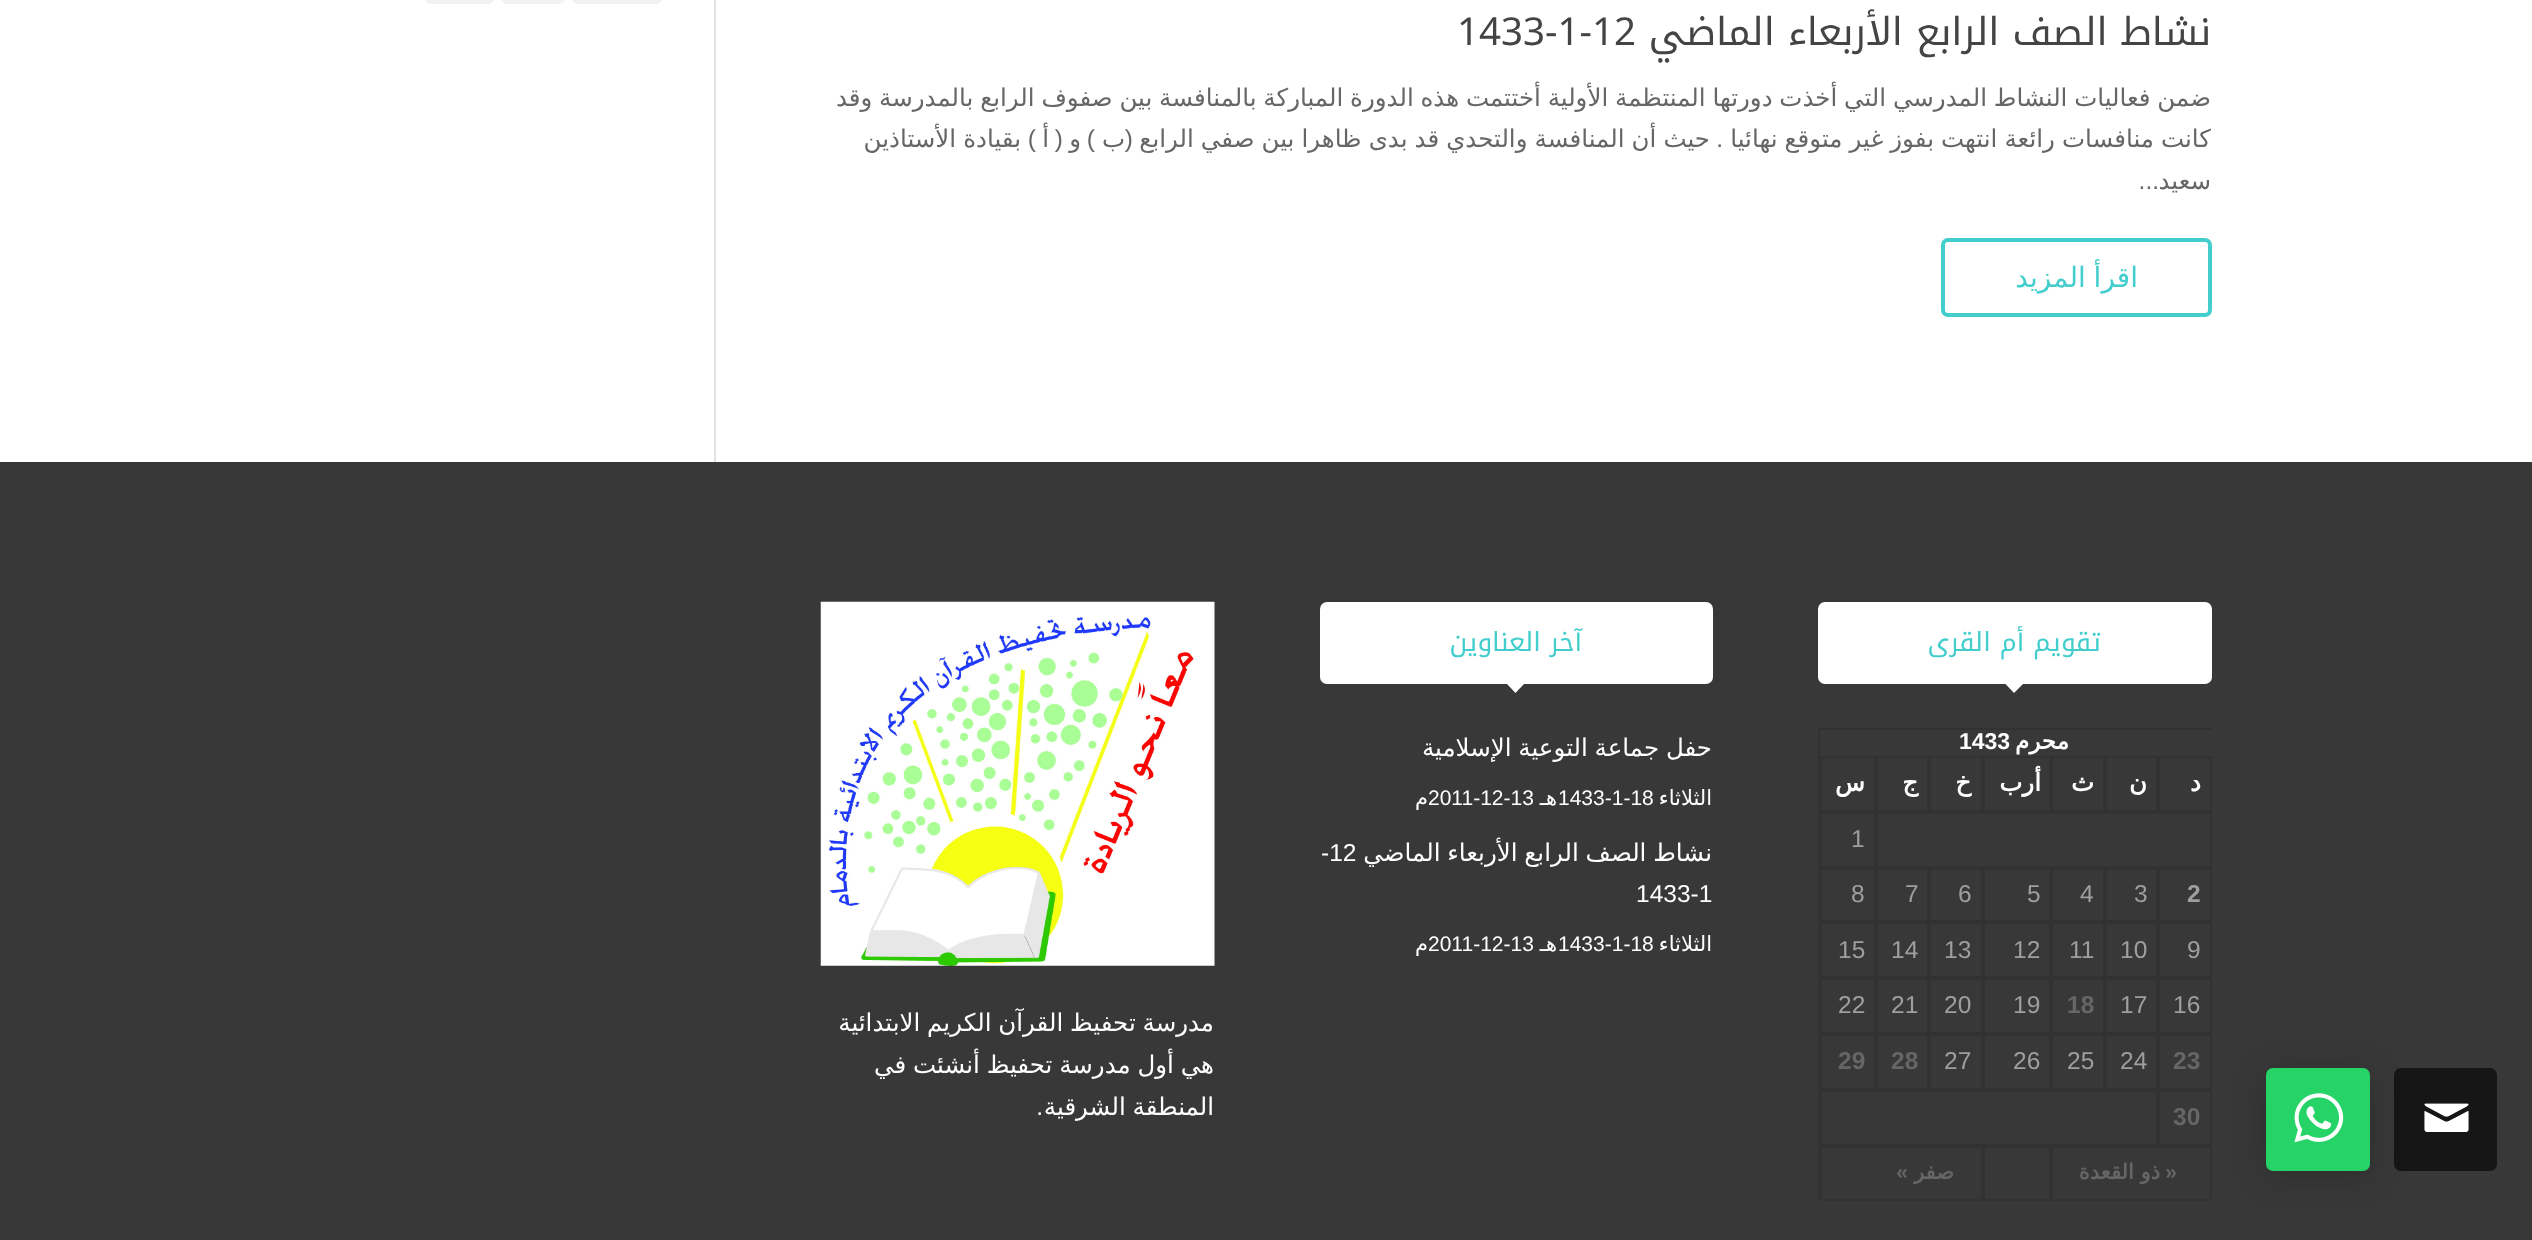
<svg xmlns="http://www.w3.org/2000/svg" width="2532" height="1240">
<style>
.a{font:38.5px Noto Kufi Arabic;direction:rtl;fill:#444}
.b{font:38.5px Noto Kufi Arabic;fill:#444}
.c{font:24.5px DejaVu Sans;direction:rtl;fill:#666}
.d{font:24.5px Liberation Sans;direction:rtl;fill:#666}
.e{font:28px DejaVu Sans;direction:rtl;fill:#44cdcd}
.f{font:26.25px Noto Kufi Arabic;direction:rtl;fill:#44cdcd}
.g{font:bold 23px DejaVu Sans;direction:rtl;fill:#fff}
.h{font:bold 23px Liberation Sans;fill:#fff}
.i{font:bold 24.5px DejaVu Sans;direction:rtl;fill:#fff}
.j{font:24.5px Liberation Sans;fill:#9f9f9f}
.k{font:bold 24.5px Liberation Sans;fill:#9f9f9f}
.l{font:bold 24.5px Liberation Sans;fill:#666}
.m{font:bold 21px Liberation Sans;direction:rtl;fill:#666}
.n{font:bold 21px DejaVu Sans;direction:rtl;fill:#666}
.o{font:24.5px DejaVu Sans;direction:rtl;fill:#fff}
.p{font:21px DejaVu Sans;direction:rtl;fill:#fff}
.q{font:21px Liberation Sans;fill:#fff}
.r{font:24.5px Liberation Sans;fill:#fff}
.s{font:24.5px Liberation Sans;direction:rtl;fill:#fff}
</style>
<defs>
<clipPath id="clip1"><path d="M821 7h1391v310H821z"/></clipPath>
<clipPath id="clip2"><path d="M1320 728h393v84H1320z"/></clipPath>
<clipPath id="clip3"><path d="M1320 833h393v124H1320z"/></clipPath>
</defs>
<rect width="100%" height="100%" fill="#fff"/>
<path fill="#383838" d="M0 462h2532v778H0z"/>
<rect fill="#00000099" x="2394" y="1068" width="103" height="103" rx="7"/>
<image href="1.png" x="2424" y="1103" width="45" height="29"/>
<rect fill="#00000033" filter="blur(17.5px)" x="2266" y="1073" width="104" height="103" rx="7"/>
<rect fill="#25d366" x="2266" y="1068" width="104" height="103" rx="7"/>
<image href="2.png" x="2294" y="1093" width="50" height="50"/>
<rect fill="#f2f2f2" x="572" y="-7" width="90" height="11" rx="7"/>
<rect fill="#f2f2f2" x="501" y="-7" width="64" height="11" rx="7"/>
<rect fill="#f2f2f2" x="425" y="-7" width="69" height="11" rx="7"/>
<rect fill="none" stroke="#44cdcd" stroke-width="4" x="1943" y="240" width="267" height="75" rx="5"/>
<path fill="#e2e2e2" d="M714 0h2v462H714z"/>
<rect fill="#fff" x="1818" y="602" width="394" height="82" rx="7"/>
<path fill="#fff" d="M2005.5 684h17.5l-9 9z"/>
<path fill="#323232" d="M1818 728h394v2h-392z"/>
<path fill="#0000001a" d="M1818 1200v-472l2 2v470z"/>
<path fill="none" stroke="#323232" stroke-width="2" d="M2159 757h52v54H2159z"/>
<path fill="none" stroke="#323232" stroke-width="2" d="M2106 757h51v54H2106z"/>
<path fill="none" stroke="#323232" stroke-width="2" d="M2052 757h52v54H2052z"/>
<path fill="none" stroke="#323232" stroke-width="2" d="M1984 757h66v54H1984z"/>
<path fill="none" stroke="#323232" stroke-width="2" d="M1930 757h52v54H1930z"/>
<path fill="none" stroke="#323232" stroke-width="2" d="M1877 757h51v54H1877z"/>
<path fill="none" stroke="#323232" stroke-width="2" d="M1821 757h54v54H1821z"/>
<path fill="none" stroke="#323232" stroke-width="2" d="M1877 813h334v54H1877z"/>
<path fill="none" stroke="#323232" stroke-width="2" d="M1821 813h54v54H1821z"/>
<path fill="none" stroke="#323232" stroke-width="2" d="M2159 869h52v52H2159z"/>
<path fill="none" stroke="#323232" stroke-width="2" d="M2106 869h51v52H2106z"/>
<path fill="none" stroke="#323232" stroke-width="2" d="M2052 869h52v52H2052z"/>
<path fill="none" stroke="#323232" stroke-width="2" d="M1984 869h66v52H1984z"/>
<path fill="none" stroke="#323232" stroke-width="2" d="M1930 869h52v52H1930z"/>
<path fill="none" stroke="#323232" stroke-width="2" d="M1877 869h51v52H1877z"/>
<path fill="none" stroke="#323232" stroke-width="2" d="M1821 869h54v52H1821z"/>
<path fill="none" stroke="#323232" stroke-width="2" d="M2159 923h52v54H2159z"/>
<path fill="none" stroke="#323232" stroke-width="2" d="M2106 923h51v54H2106z"/>
<path fill="none" stroke="#323232" stroke-width="2" d="M2052 923h52v54H2052z"/>
<path fill="none" stroke="#323232" stroke-width="2" d="M1984 923h66v54H1984z"/>
<path fill="none" stroke="#323232" stroke-width="2" d="M1930 923h52v54H1930z"/>
<path fill="none" stroke="#323232" stroke-width="2" d="M1877 923h51v54H1877z"/>
<path fill="none" stroke="#323232" stroke-width="2" d="M1821 923h54v54H1821z"/>
<path fill="none" stroke="#323232" stroke-width="2" d="M2159 979h52v54H2159z"/>
<path fill="none" stroke="#323232" stroke-width="2" d="M2106 979h51v54H2106z"/>
<path fill="none" stroke="#323232" stroke-width="2" d="M2052 979h52v54H2052z"/>
<path fill="none" stroke="#323232" stroke-width="2" d="M1984 979h66v54H1984z"/>
<path fill="none" stroke="#323232" stroke-width="2" d="M1930 979h52v54H1930z"/>
<path fill="none" stroke="#323232" stroke-width="2" d="M1877 979h51v54H1877z"/>
<path fill="none" stroke="#323232" stroke-width="2" d="M1821 979h54v54H1821z"/>
<path fill="none" stroke="#323232" stroke-width="2" d="M2159 1035h52v54H2159z"/>
<path fill="none" stroke="#323232" stroke-width="2" d="M2106 1035h51v54H2106z"/>
<path fill="none" stroke="#323232" stroke-width="2" d="M2052 1035h52v54H2052z"/>
<path fill="none" stroke="#323232" stroke-width="2" d="M1984 1035h66v54H1984z"/>
<path fill="none" stroke="#323232" stroke-width="2" d="M1930 1035h52v54H1930z"/>
<path fill="none" stroke="#323232" stroke-width="2" d="M1877 1035h51v54H1877z"/>
<path fill="none" stroke="#323232" stroke-width="2" d="M1821 1035h54v54H1821z"/>
<path fill="none" stroke="#323232" stroke-width="2" d="M2159 1091h52v54H2159z"/>
<path fill="none" stroke="#323232" stroke-width="2" d="M1821 1091h336v54H1821z"/>
<path fill="none" stroke="#323232" stroke-width="2" d="M2052 1147h159v53H2052z"/>
<path fill="none" stroke="#323232" stroke-width="2" d="M1984 1147h66v53H1984z"/>
<path fill="none" stroke="#323232" stroke-width="2" d="M1821 1147h161v53H1821z"/>
<rect fill="#fff" x="1320" y="602" width="393" height="82" rx="7"/>
<path fill="#fff" d="M1507 684h17l-8.5 9z"/>
<image href="3.png" x="820" y="601" width="395" height="365"/>
<text class="a" x="2211" y="45">نشاط الصف الرابع الأربعاء الماضي</text>
<text class="b" x="1457" y="45">1433-1-12</text>
<g clip-path="url(#clip1)">
<text class="c" x="2211" y="106" word-spacing="-1">ضمن فعاليات النشاط المدرسي التي أخذت دورتها المنتظمة الأولية أختتمت هذه الدورة المباركة بالمنافسة بين صفوف الرابع بالمدرسة وقد</text>
<text class="c" x="2211" y="147" word-spacing="-0.75">كانت منافسات رائعة انتهت بفوز غير متوقع نهائيا</text>
</g>
<text class="d" x="1723" y="147">.</text>
<text class="c" x="1710" y="147" word-spacing="-0.75">حيث أن المنافسة والتحدي قد بدى ظاهرا بين صفي الرابع</text>
<text class="d" x="1133" y="147">(</text>
<text class="c" x="1125" y="147">ب</text>
<text class="d" x="1095" y="147">)</text>
<text class="c" x="1081" y="147">و</text>
<text class="d" x="1063" y="147">(</text>
<text class="c" x="1049" y="147">أ</text>
<text class="d" x="1036" y="147">)</text>
<text class="c" x="1021" y="147" word-spacing="-0.75">بقيادة الأستاذين</text>
<text class="c" x="2211" y="189">سعيد</text>
<text class="d" x="2159" y="189">...</text>
<text class="e" x="2138" y="287" word-spacing="-1">اقرأ المزيد</text>
<text class="f" x="2101" y="651">تقويم أم القرى</text>
<text class="g" x="2069" y="749">محرم</text>
<text class="h" x="1959" y="749">1433</text>
<text class="i" x="2201" y="791">د</text>
<text class="i" x="2147" y="791">ن</text>
<text class="i" x="2094" y="791">ث</text>
<text class="i" x="2041" y="791">أرب</text>
<text class="i" x="1971" y="791">خ</text>
<text class="i" x="1918" y="791">ج</text>
<text class="i" x="1865" y="791">س</text>
<text class="j" x="1851" y="847">1</text>
<text class="k" x="2187" y="902">2</text>
<text class="j" x="2134" y="902">3</text>
<text class="j" x="2080" y="902">4</text>
<text class="j" x="2027" y="902">5</text>
<text class="j" x="1958" y="902">6</text>
<text class="j" x="1905" y="902">7</text>
<text class="j" x="1851" y="902">8</text>
<text class="j" x="2187" y="958">9</text>
<text class="j" x="2120" y="958">10</text>
<text class="j" x="2069" y="958">11</text>
<text class="j" x="2013" y="958">12</text>
<text class="j" x="1944" y="958">13</text>
<text class="j" x="1891" y="958">14</text>
<text class="j" x="1838" y="958">15</text>
<text class="j" x="2173" y="1013">16</text>
<text class="j" x="2120" y="1013">17</text>
<text class="l" x="2067" y="1013">18</text>
<text class="j" x="2013" y="1013">19</text>
<text class="j" x="1944" y="1013">20</text>
<text class="j" x="1891" y="1013">21</text>
<text class="j" x="1838" y="1013">22</text>
<text class="l" x="2173" y="1069">23</text>
<text class="j" x="2120" y="1069">24</text>
<text class="j" x="2067" y="1069">25</text>
<text class="j" x="2013" y="1069">26</text>
<text class="j" x="1944" y="1069">27</text>
<text class="l" x="1891" y="1069">28</text>
<text class="l" x="1838" y="1069">29</text>
<text class="l" x="2173" y="1125">30</text>
<text class="m" x="2177" y="1179">«</text>
<text class="n" x="2160" y="1179">ذو القعدة</text>
<text class="n" x="1954" y="1179">صفر</text>
<text class="m" x="1908" y="1179">»</text>
<text class="f" x="1582" y="651">آخر العناوين</text>
<g clip-path="url(#clip2)">
<text class="o" x="1712" y="756" word-spacing="-1">حفل جماعة التوعية الإسلامية</text>
</g>
<text class="p" x="1712" y="805">الثلاثاء</text>
<text class="q" x="1558" y="805">1433-1-18</text>
<text class="p" x="1557" y="805">هـ</text>
<text class="q" x="1428" y="805">2011-12-13</text>
<text class="p" x="1428" y="805">م</text>
<g clip-path="url(#clip3)">
<text class="o" x="1712" y="861" word-spacing="-1">نشاط الصف الرابع الأربعاء الماضي</text>
</g>
<text class="r" x="1321" y="861">-12</text>
<text class="r" x="1636" y="902">1433-1</text>
<text class="p" x="1712" y="951">الثلاثاء</text>
<text class="q" x="1558" y="951">1433-1-18</text>
<text class="p" x="1557" y="951">هـ</text>
<text class="q" x="1428" y="951">2011-12-13</text>
<text class="p" x="1428" y="951">م</text>
<text class="o" x="1214" y="1031" word-spacing="-1">مدرسة تحفيظ القرآن الكريم الابتدائية</text>
<text class="o" x="1214" y="1073" word-spacing="-1">هي أول مدرسة تحفيظ أنشئت في</text>
<text class="o" x="1214" y="1115" word-spacing="-1">المنطقة الشرقية</text>
<text class="s" x="1043" y="1115">.</text>
</svg>
